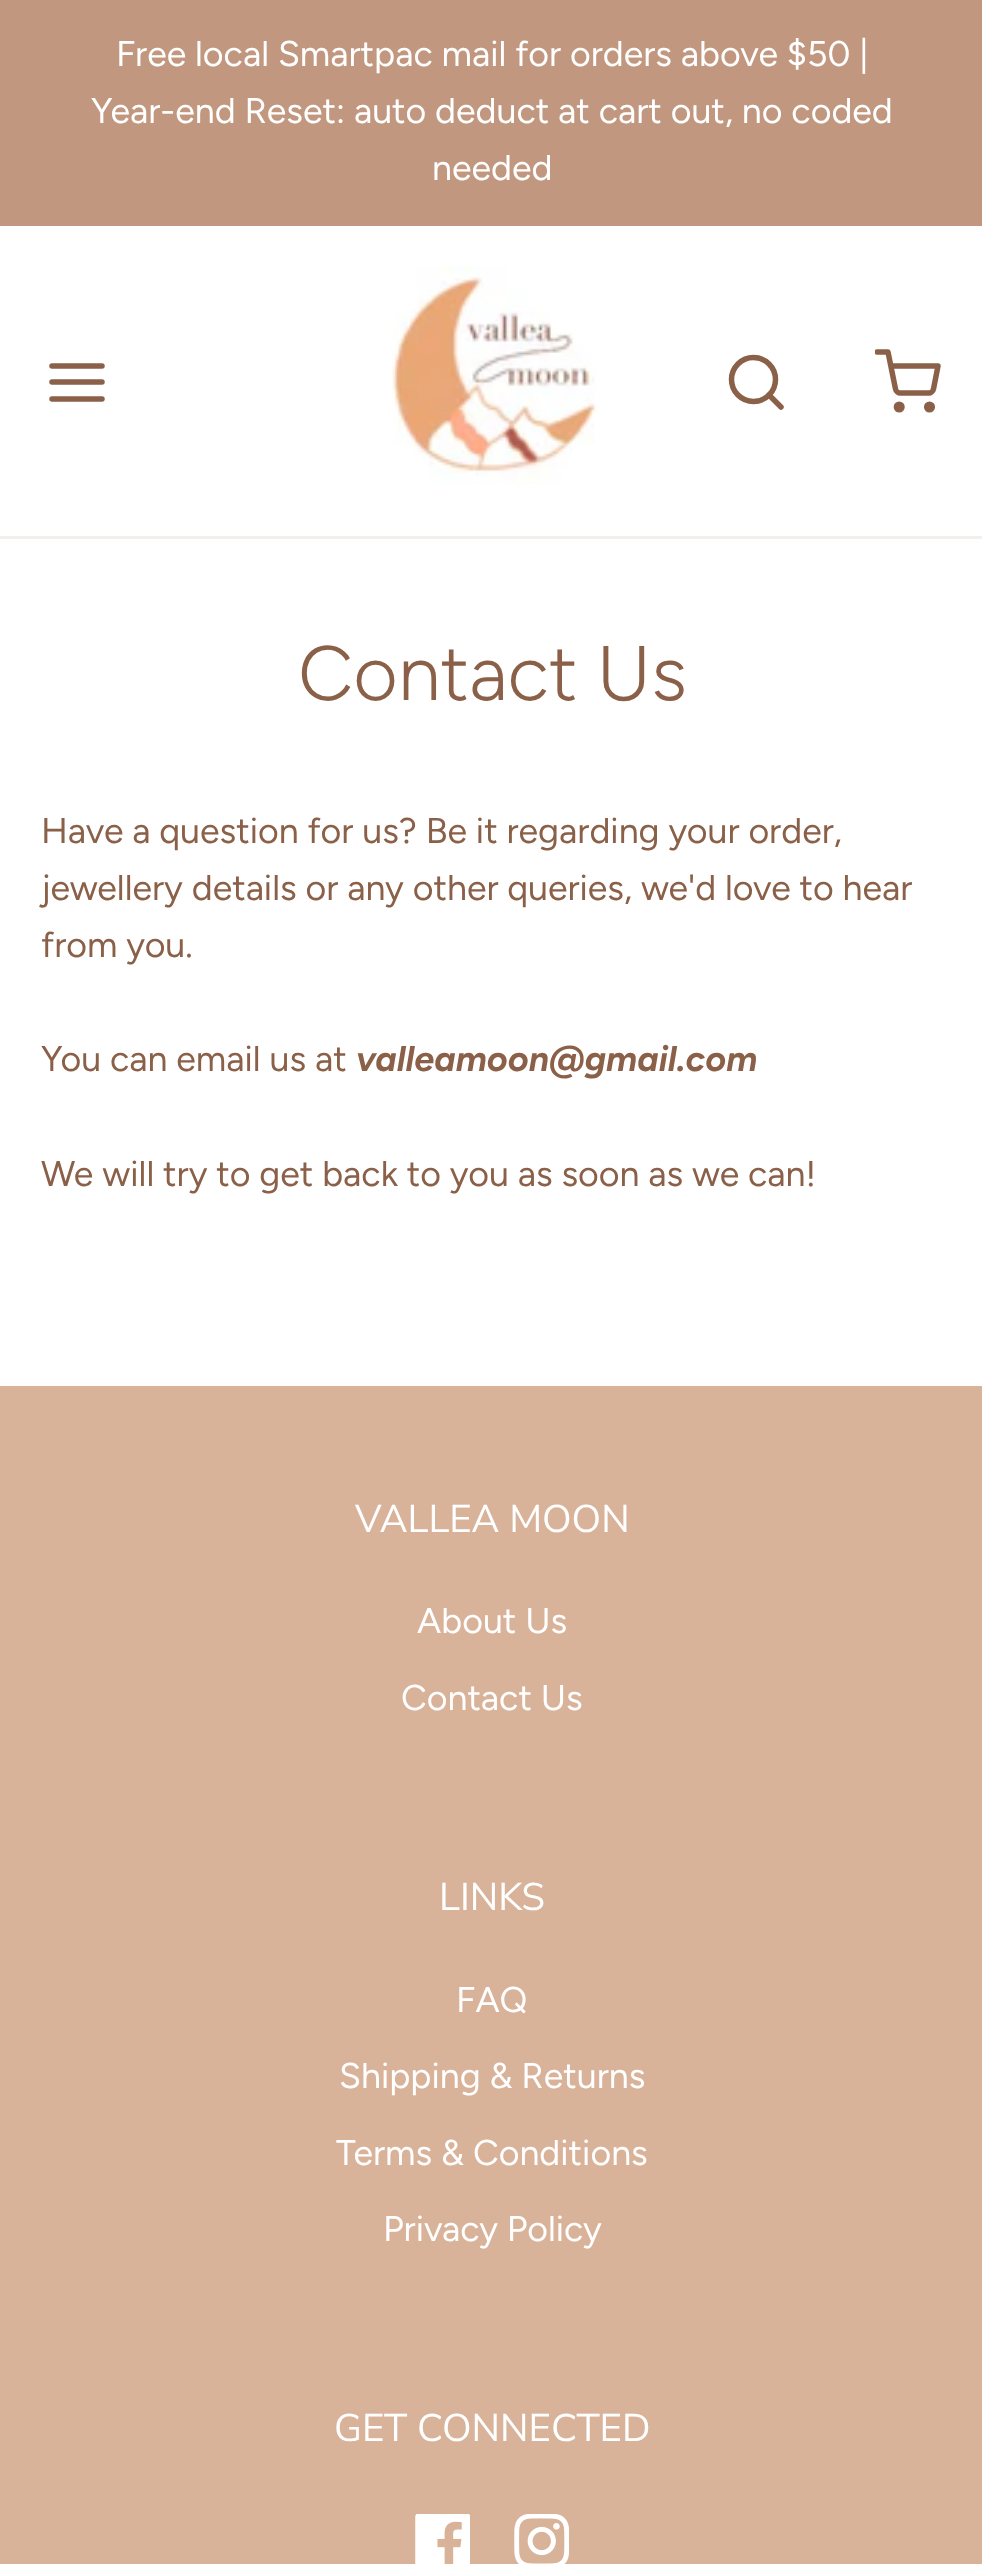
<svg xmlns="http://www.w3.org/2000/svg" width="982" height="2564">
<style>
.a{font:35.75px Figtree;fill:#fff}
.b{font:300 77px Figtree;fill:#8b6048}
.c{font:35.75px Figtree;fill:#8b6048}
.d{font:italic bold 35.75px Figtree;fill:#8b6048}
.e{font:38.5px Nunito Sans;fill:#fff}
</style>
<defs>
<clipPath id="clip1"><path d="M875 349h66v66H875z"/></clipPath>
</defs>
<rect width="100%" height="100%" fill="#fff"/>
<path fill="#c1987f" d="M0 0h982v226H0z"/>
<path fill="#f3efed" d="M0 536h982v3H0z"/>
<path fill="none" stroke="#8b6048" stroke-width="5.5" stroke-linecap="round" stroke-linejoin="round" d="M52 382h50m-50-16h50m-50 33h50"/>
<image href="1.png" x="392" y="267" width="205" height="217"/>
<circle fill="none" stroke="#8b6048" stroke-width="5.5" cx="753.5" cy="379.5" r="22"/>
<path fill="none" stroke="#8b6048" stroke-width="5.5" stroke-linecap="round" stroke-linejoin="round" d="M781 407l-12-12"/>
<circle fill="none" stroke="#8b6048" stroke-width="5.5" cx="899.2" cy="407" r="2.8"/>
<circle fill="none" stroke="#8b6048" stroke-width="5.5" cx="929.5" cy="407" r="2.8"/>
<g clip-path="url(#clip1)">
<path fill="none" stroke="#8b6048" stroke-width="5.5" stroke-linecap="round" stroke-linejoin="round" d="M877 352h11l7.5 37c.5 2.5 3 4.5 5.5 4h27c2.5 .5 5-1.5 5.5-4l4.5-23h-47"/>
</g>
<path fill="#d9b29a" d="M0 1386h982v1178H0z"/>
<image href="2.png" x="415" y="2514" width="55" height="50"/>
<image href="3.png" x="514" y="2514" width="55" height="50"/>
<text class="a" x="116" y="66">Free local Smartpac mail for orders above $50 |</text>
<text class="a" x="91" y="123">Year-end Reset: auto deduct at cart out, no coded</text>
<text class="a" x="432" y="180">needed</text>
<text class="b" x="298" y="700">Contact Us</text>
<text class="c" x="41" y="843">Have a question for us? Be it regarding your order,</text>
<text class="c" x="41" y="900">jewellery details or any other queries, we'd love to hear</text>
<text class="c" x="41" y="957">from you.</text>
<text class="c" x="41" y="1071">You can email us at</text>
<text class="d" x="356" y="1071">valleamoon@gmail.com</text>
<text class="c" x="41" y="1186">We will try to get back to you as soon as we can!</text>
<text class="e" x="355" y="1532">VALLEA MOON</text>
<text class="a" x="417" y="1633">About Us</text>
<text class="a" x="401" y="1710">Contact Us</text>
<text class="e" x="439" y="1910">LINKS</text>
<text class="a" x="456" y="2012">FAQ</text>
<text class="a" x="339" y="2088">Shipping &amp; Returns</text>
<text class="a" x="336" y="2165">Terms &amp; Conditions</text>
<text class="a" x="383" y="2241">Privacy Policy</text>
<text class="e" x="334" y="2441">GET CONNECTED</text>
</svg>
